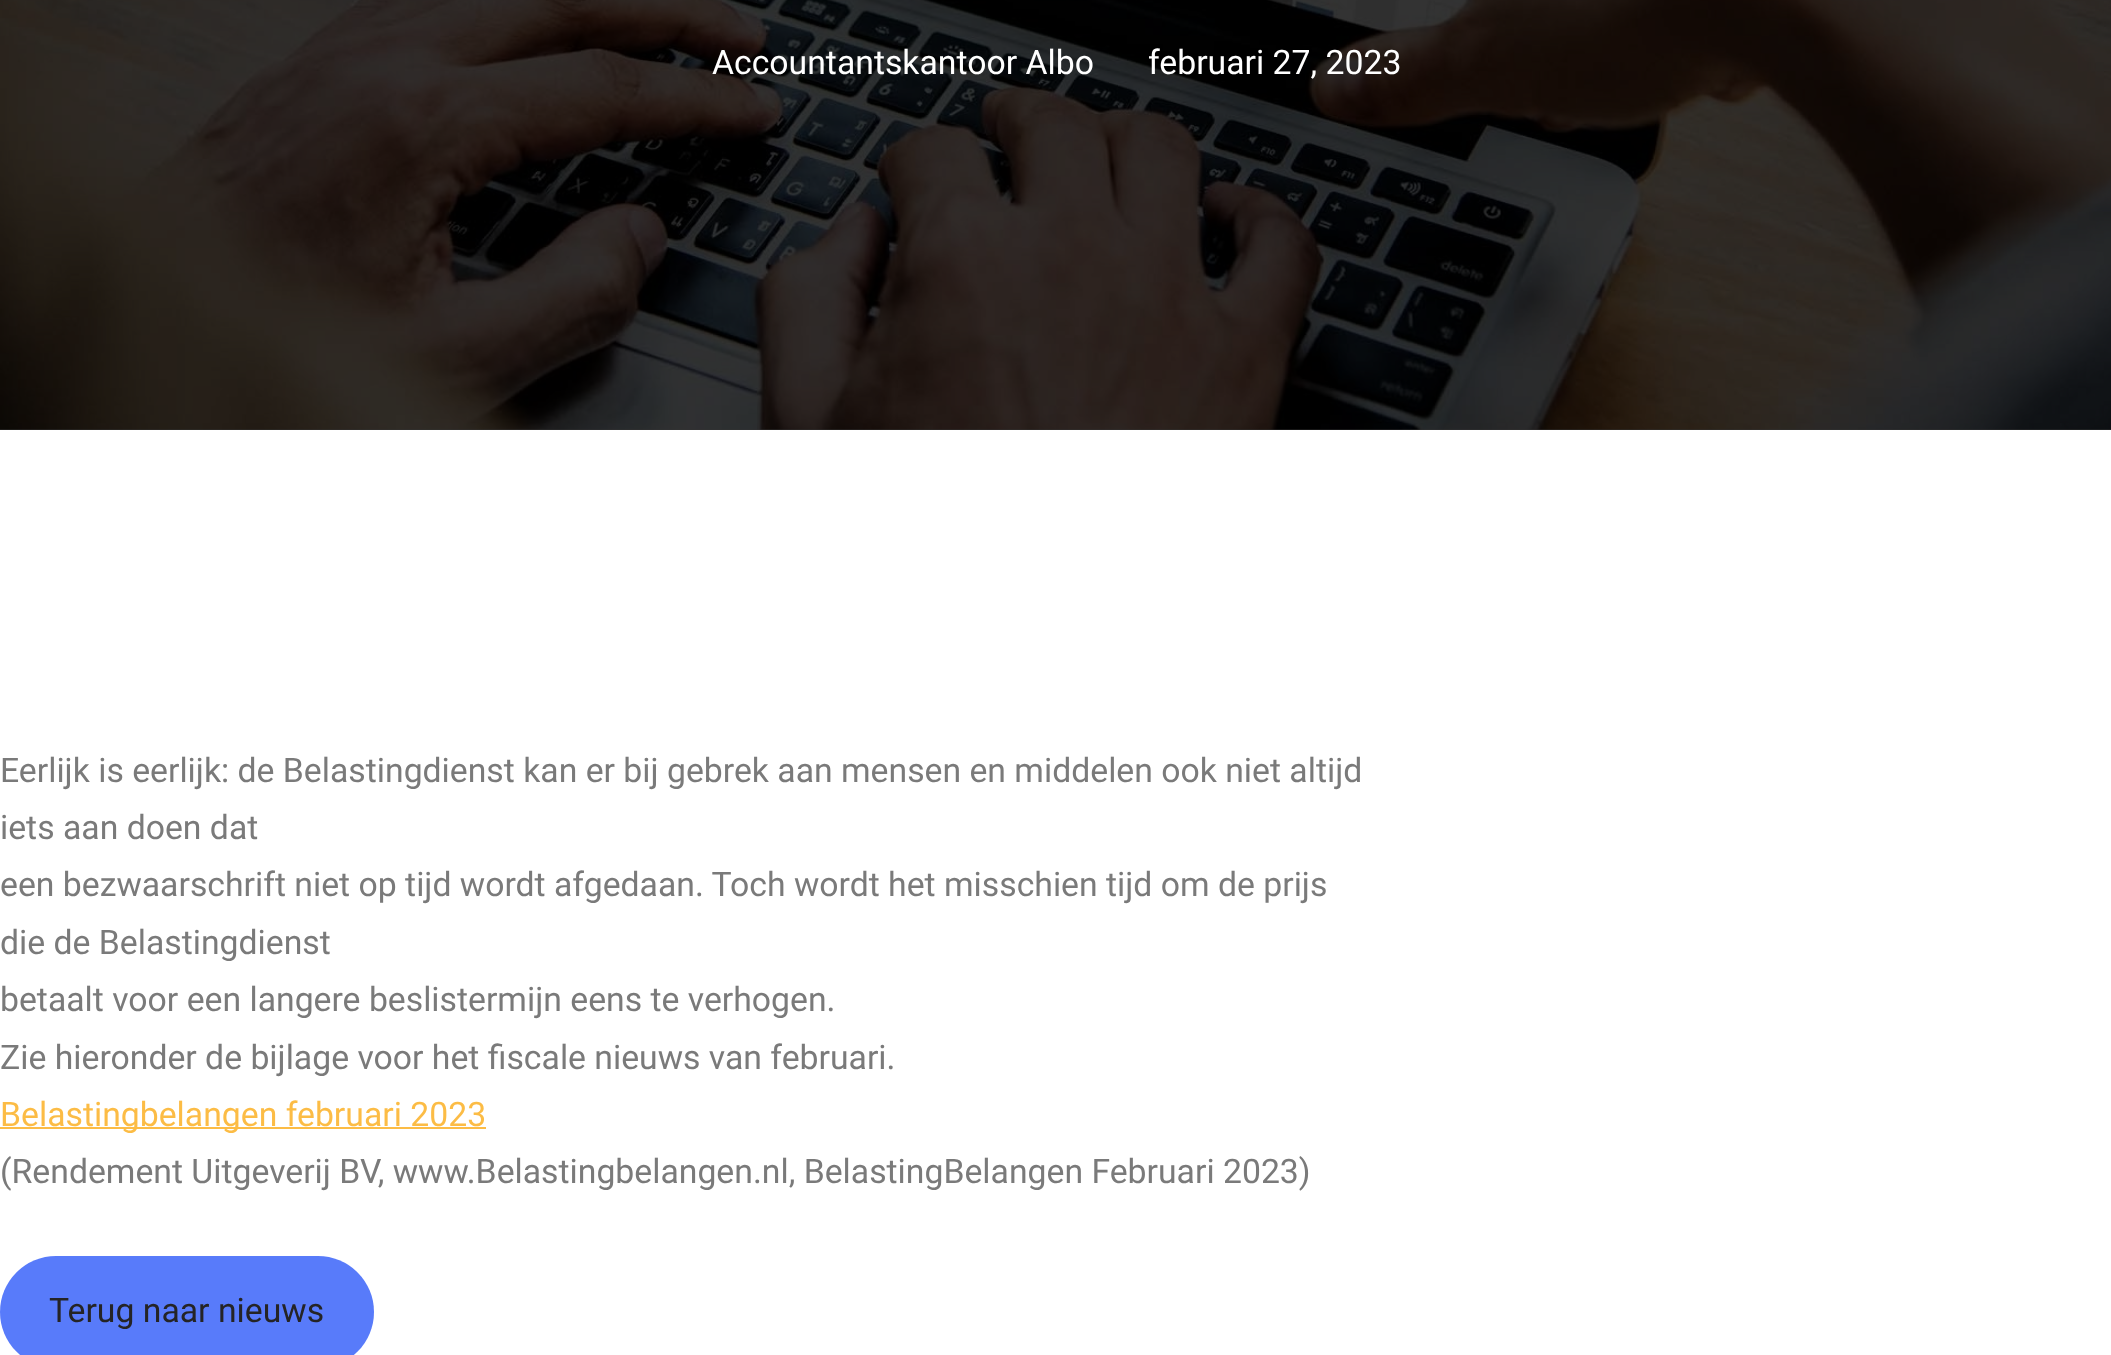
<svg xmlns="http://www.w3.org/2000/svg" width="2111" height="1355">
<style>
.a{font:33.75px Roboto;fill:#fff}
.b{font:33.75px Roboto;fill:#7a7a7a}
.c{font:33.75px Roboto;fill:#fcbc45}
.d{font:33.75px Roboto;fill:#252425}
</style>
<rect width="100%" height="100%" fill="#fff"/>
<path fill="#333" d="M0 429h2111v1H0z"/>
<image href="1.png" x="0" y="0" width="2111" height="430"/>
<path fill="#fcbc45" d="M0 1127h486v2H0z"/>
<rect fill="#587bfa" y="1256" width="374" height="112" rx="56"/>
<text class="a" x="712" y="74">Accountantskantoor Albo</text>
<text class="a" x="1148" y="74">februari 27, 2023</text>
<text class="b" x="0" y="782">Eerlijk is eerlijk: de Belastingdienst kan er bij gebrek aan mensen en middelen ook niet altijd</text>
<text class="b" x="0" y="839">iets aan doen dat</text>
<text class="b" x="0" y="896">een bezwaarschrift niet op tijd wordt afgedaan. Toch wordt het misschien tijd om de prijs</text>
<text class="b" x="0" y="954">die de Belastingdienst</text>
<text class="b" x="0" y="1011">betaalt voor een langere beslistermijn eens te verhogen.</text>
<text class="b" x="0" y="1069">Zie hieronder de bijlage voor het fiscale nieuws van februari.</text>
<text class="c" x="0" y="1126">Belastingbelangen februari 2023</text>
<text class="b" x="0" y="1183">(Rendement Uitgeverij BV, www.Belastingbelangen.nl, BelastingBelangen Februari 2023)</text>
<text class="d" x="49" y="1322">Terug naar nieuws</text>
</svg>
